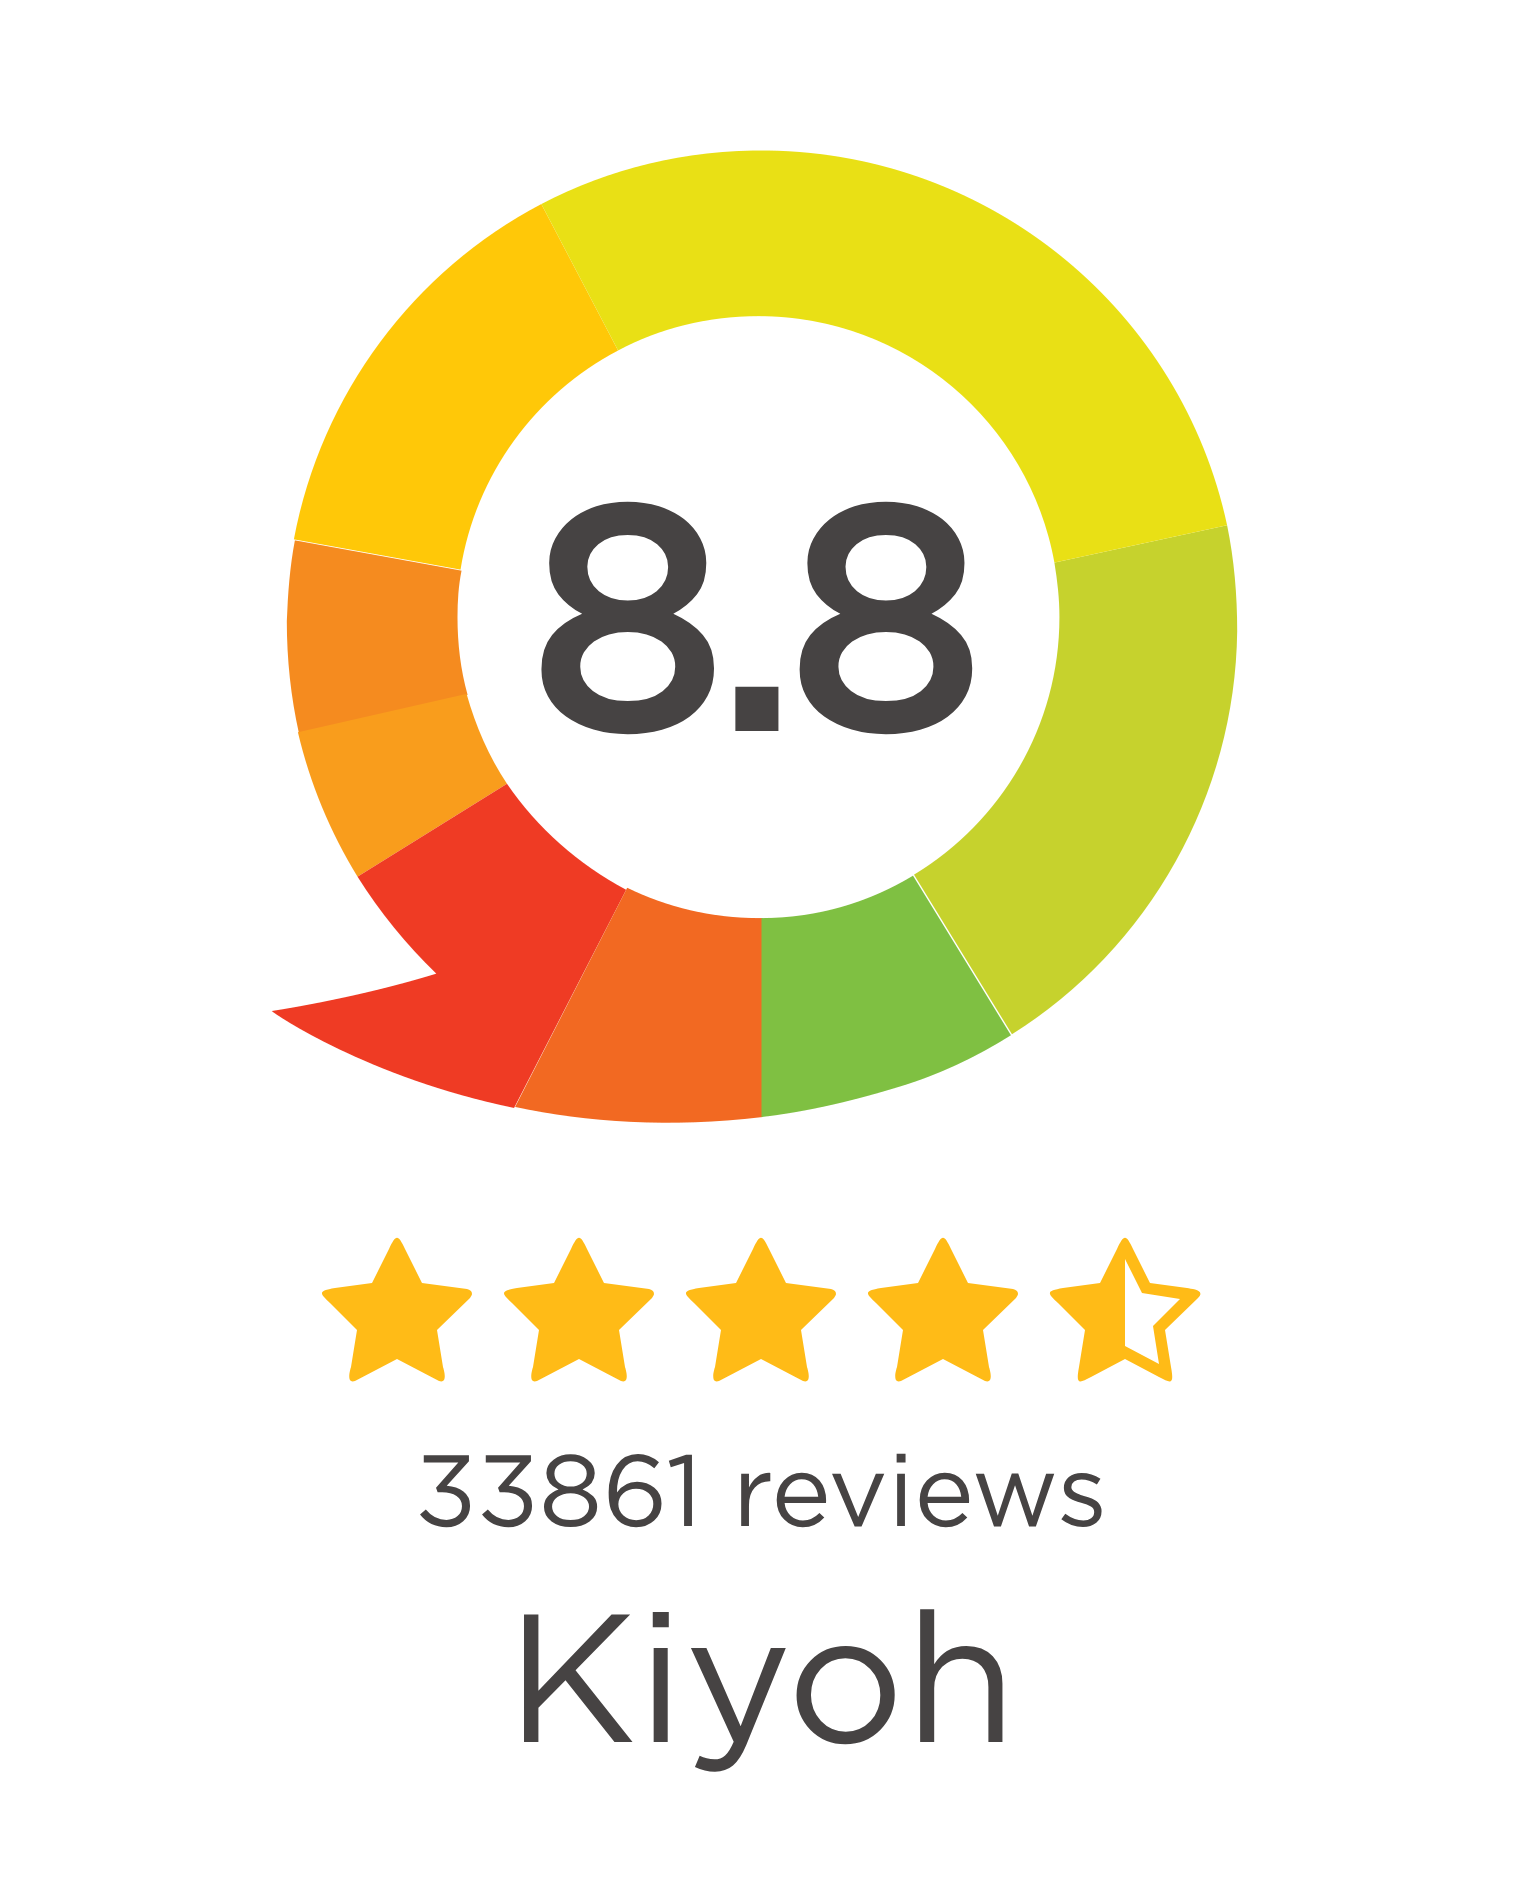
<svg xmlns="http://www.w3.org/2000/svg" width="1521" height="1904">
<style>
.a{font:500 323px Gotham;letter-spacing:-16px;fill:#464343}
.b{font:101px Gotham;fill:#464343}
.c{font:182px Gotham;fill:#464343}
</style>
<rect width="100%" height="100%" fill="#fff"/>
<image href="1.png" x="271" y="150" width="967" height="973"/>
<path fill="#ffbb17" d="M472 1294c0 1-1 2-2 4l-33 32l6 37c1 3 5 17-4 14l-42-22l-42 22c-9 3-5-11-4-14l6-37l-27-27c-11-10-12-12 5-15l37-5l17-34c7-15 9-15 16 0l17 34l45 6c3 1 5 2 5 5z"/>
<path fill="#ffbb17" d="M654 1294c0 1-1 2-2 4l-33 32l6 37c1 3 5 17-4 14l-42-22l-42 22c-9 3-5-11-4-14l6-37l-27-27c-11-10-12-12 5-15l37-5l17-34c7-15 9-15 16 0l17 34l45 6c3 1 5 2 5 5z"/>
<path fill="#ffbb17" d="M836 1294c0 1-1 2-2 4l-33 32l6 37c1 3 5 17-4 14l-42-22l-42 22c-9 3-5-11-4-14l6-37l-27-27c-11-10-12-12 5-15l37-5l17-34c7-15 9-15 16 0l17 34l45 6c3 1 5 2 5 5z"/>
<path fill="#ffbb17" d="M1018 1294c0 1-1 2-2 4l-33 32l6 37c1 3 5 17-4 14l-42-22l-42 22c-9 3-5-11-4-14l6-37l-27-27c-11-10-12-12 5-15l37-5l17-34c7-15 9-15 16 0l17 34l45 6c3 1 5 2 5 5z"/>
<path fill="#ffbb17" d="M1157 1322l23-23l-38-6l-17-34v87l34 18l-6-38zm41-24l-33 32l6 37c3 17 1 17-12 10l-34-18l-34 18c-13 7-15 7-12-10l6-37l-27-27c-12-11-11-12 5-15l37-5l17-34c7-15 9-15 16 0l17 34l37 5c5 1 19 2 11 10z"/>
<text class="a" x="526" y="731">8.8</text>
<text class="b" x="415" y="1526">33861 reviews</text>
<text class="c" x="506" y="1742">Kiyoh</text>
</svg>
